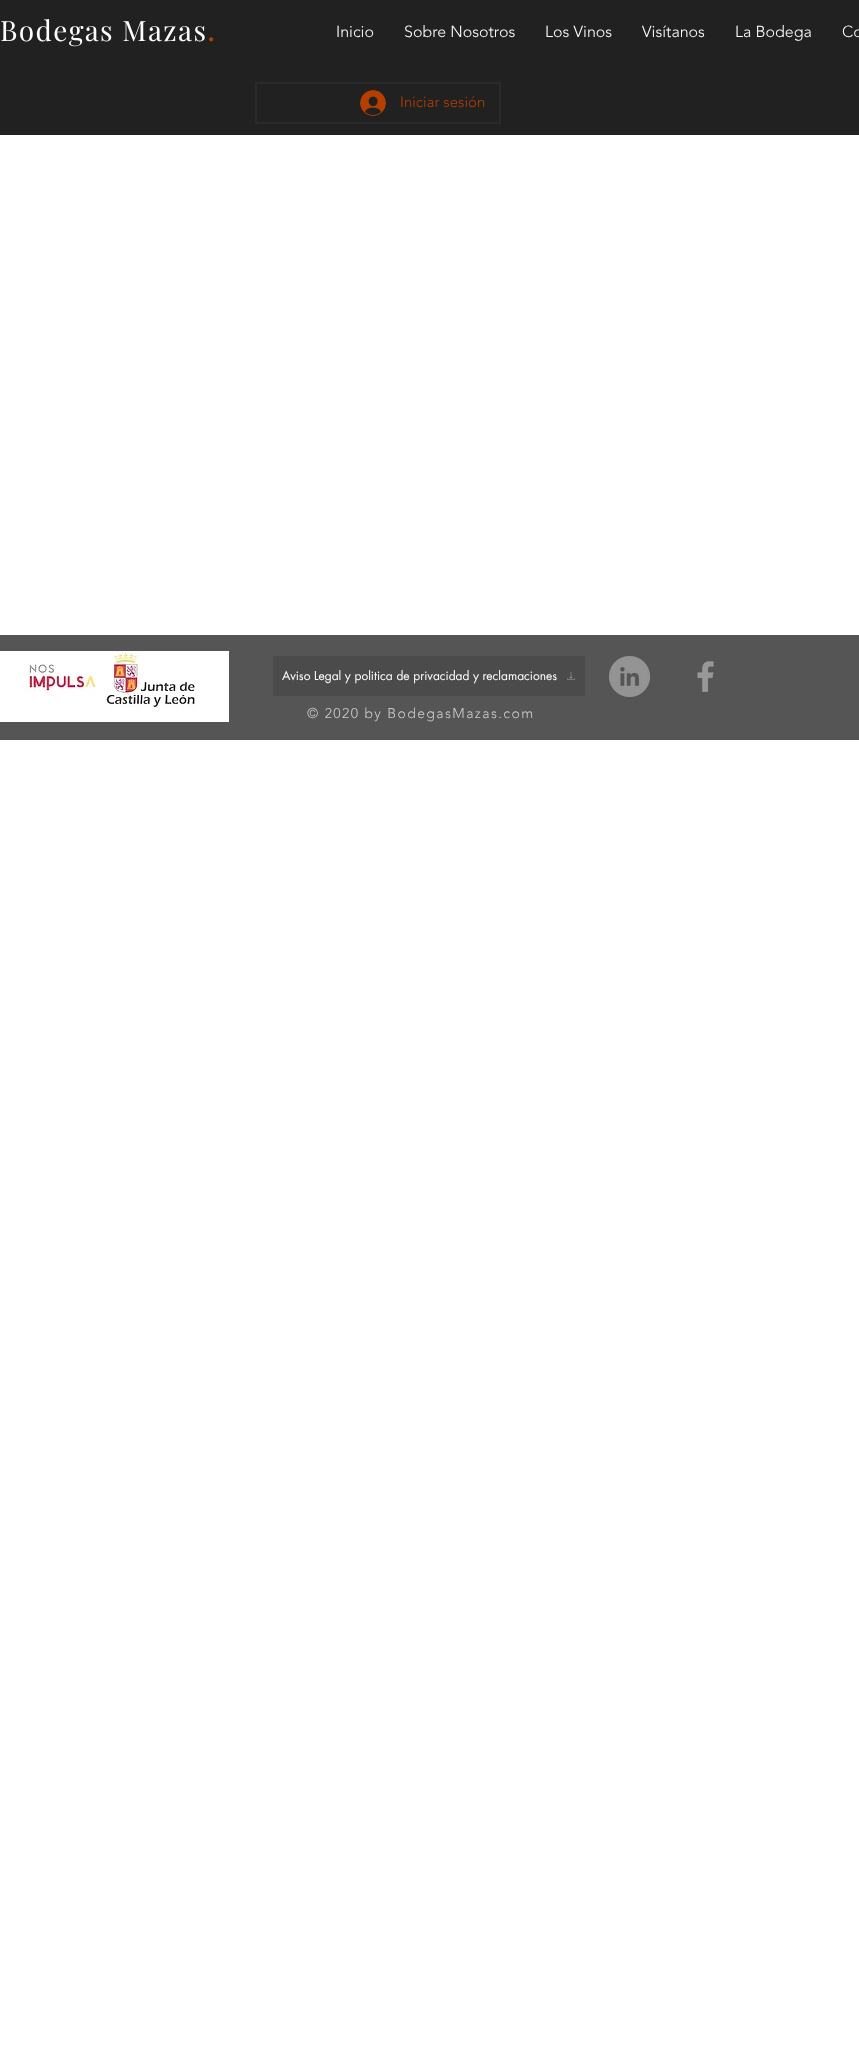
<svg xmlns="http://www.w3.org/2000/svg" width="859" height="2057">
<style>
.a{font:28px Playfair Display;letter-spacing:1.4px;fill:#fff}
.b{font:33px Playfair Display;fill:#b53f00}
.c{font:300 16px 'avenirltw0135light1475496';fill:#fff}
.d{font:300 15px 'avenirltw0135light1475496';fill:#b53f00}
.e{font:12px futura;fill:#fff}
.f{font:300 14px 'avenirltw0135light1475496';letter-spacing:1.4px;fill:#ccc}
</style>
<rect width="100%" height="100%" fill="#fff"/>
<path fill="#212121" d="M0 0h859v135H0z"/>
<path fill="none" stroke="#2a2a2a" stroke-width="2" d="M256 83h244v40H256z"/>
<image href="1.png" x="360" y="90" width="26" height="26"/>
<path fill="#555" d="M0 635h859v105H0z"/>
<image href="2.png" x="0" y="651" width="229" height="71"/>
<path fill="#4b4b4b" d="M273 656h312v40H273z"/>
<image href="3.png" x="567" y="672" width="8" height="8"/>
<image href="4.png" x="609" y="656" width="41" height="41"/>
<image href="5.png" x="697" y="661" width="17" height="31"/>
<text class="a" x="0" y="41">Bodegas Mazas</text>
<text class="b" x="207" y="41">.</text>
<text class="c" x="336" y="37">Inicio</text>
<text class="c" x="404" y="37">Sobre Nosotros</text>
<text class="c" x="545" y="37">Los Vinos</text>
<text class="c" x="642" y="37">Visítanos</text>
<text class="c" x="735" y="37">La Bodega</text>
<text class="c" x="842" y="37">Co</text>
<text class="d" x="400" y="107">Iniciar sesión</text>
<text class="e" x="282" y="680">Aviso Legal y politica de privacidad y reclamaciones</text>
<text class="f" x="307" y="718">© 2020 by BodegasMazas.com</text>
</svg>
